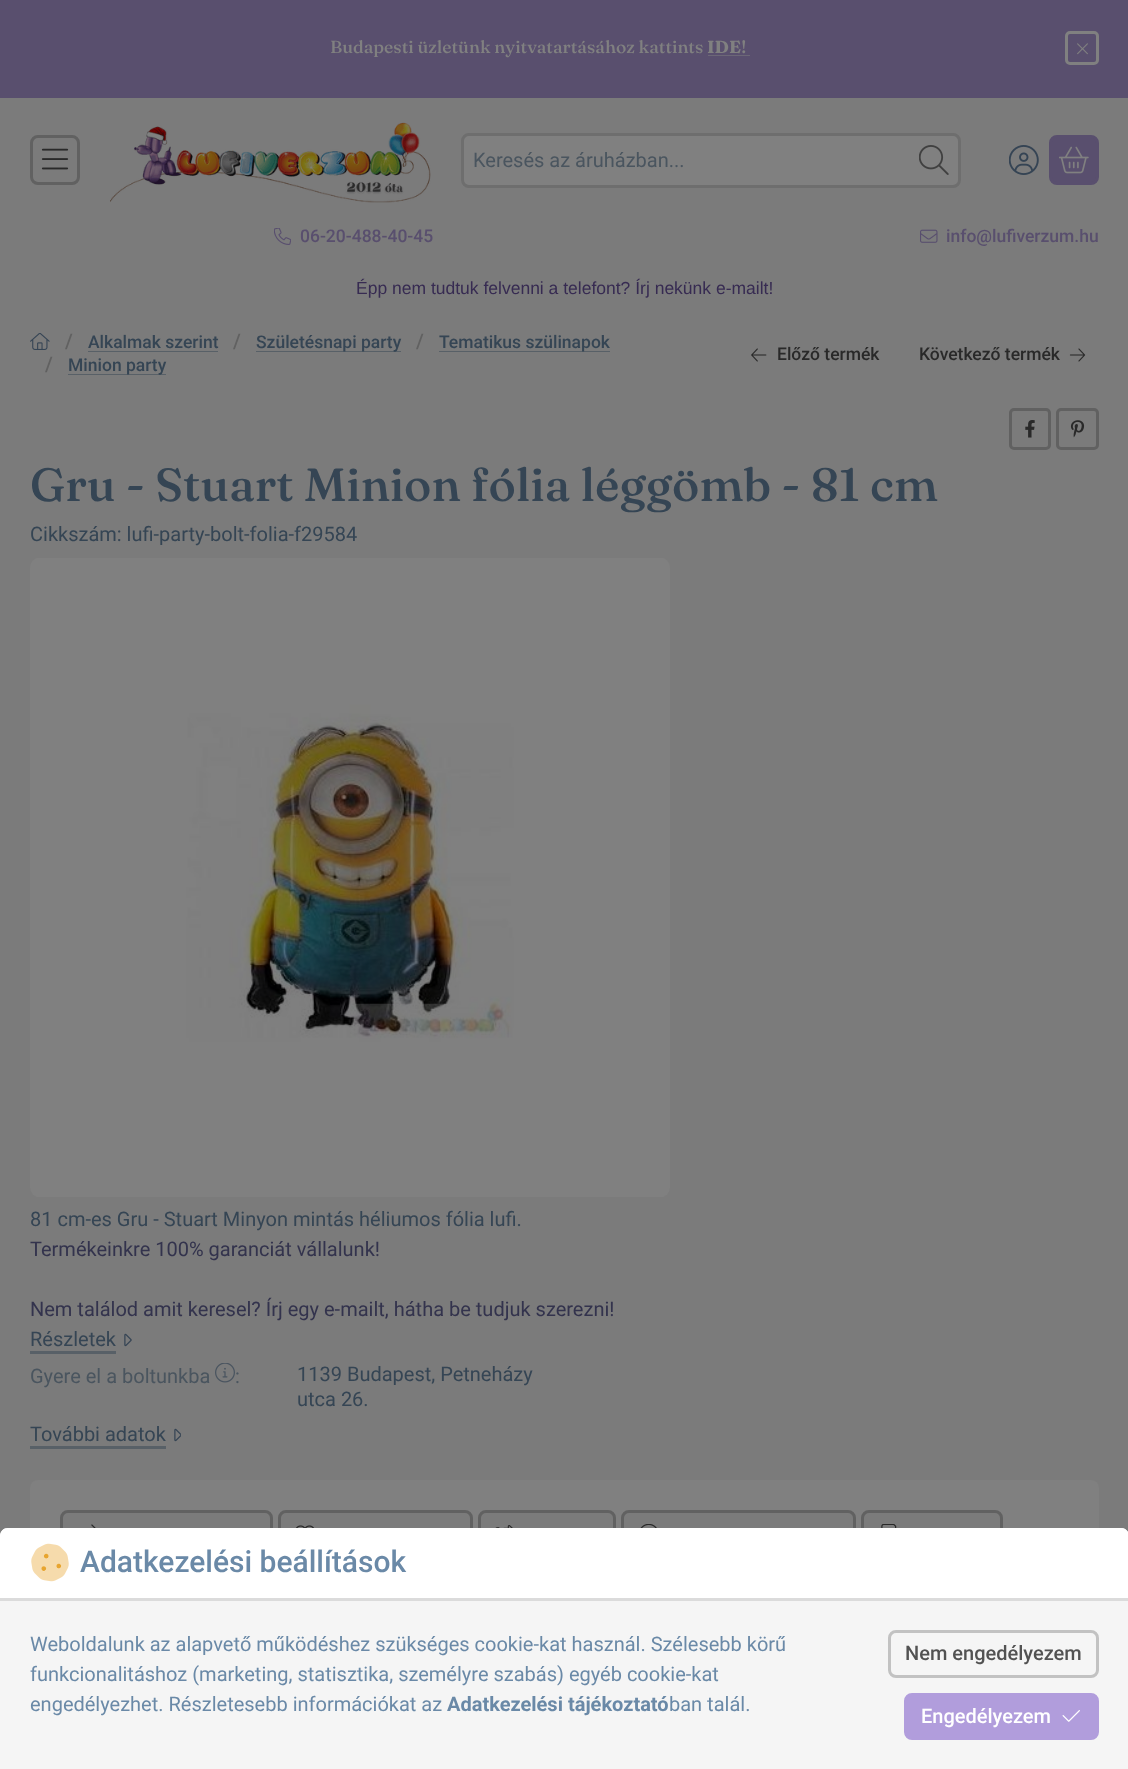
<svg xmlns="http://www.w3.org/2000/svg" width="1128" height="1769">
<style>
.a{font:500 17.5px Fraunces;fill:#808080}
.b{font:bold 17.5px Fraunces;fill:#808080}
.c{font:20px Roboto;fill:#4a555f}
.d{font:500 17.5px Roboto;fill:#594f6e}
.e{font:17.5px Liberation Sans;fill:#372b52}
.f{font:500 20px Roboto;fill:#616161}
.g{font:500 17.5px Roboto;fill:#354554}
.h{font:500 17.5px Roboto;fill:#292929}
.i{font:500 46.4px Fraunces;fill:#354554}
.j{font:20px Roboto;fill:#354554}
.k{font:20px Roboto;fill:#33334d}
.l{font:500 30px Roboto;fill:#6a89a7}
.m{font:20px Roboto;fill:#6a89a7}
.n{font:bold 20px Roboto;fill:#6a89a7}
.o{font:500 20px Roboto;fill:#525252}
.p{font:500 20px Roboto;fill:#fff}
</style>
<rect width="100%" height="100%" fill="#7b7b7b"/>
<path fill="#594f6e" d="M0 0h1128v98H0z"/>
<path fill="#6c6777" d="M708 55h42v1H708z"/>
<rect fill="none" stroke="#808080" stroke-width="3" x="1066.5" y="32.5" width="31" height="31" rx="3.5"/>
<image href="1.png" x="1077" y="43" width="11" height="12"/>
<rect fill="none" stroke="#616161" stroke-width="3" x="31.5" y="136.5" width="47" height="47" rx="6.5"/>
<image href="2.png" x="41" y="148" width="28" height="22"/>
<image href="3.png" x="110" y="122" width="321" height="81"/>
<rect fill="#808080" stroke="#6e6e6e" stroke-width="3" x="462.5" y="134.5" width="497" height="52" rx="6.5"/>
<image href="4.png" x="919" y="145" width="30" height="30"/>
<image href="5.png" x="1009" y="145" width="30" height="30"/>
<rect fill="#594f6e" stroke="#594f6e" stroke-width="3" x="1050.5" y="136.5" width="47" height="47" rx="6.5"/>
<image href="6.png" x="1059" y="146" width="30" height="28"/>
<image href="7.png" x="274" y="228" width="17" height="17"/>
<image href="8.png" x="920" y="229" width="18" height="14"/>
<image href="9.png" x="30" y="333" width="20" height="17"/>
<path fill="#586067" d="M88 351h130v1H88z"/>
<path fill="#586067" d="M256 351h145v1H256z"/>
<path fill="#586067" d="M439 351h171v1H439z"/>
<path fill="#586067" d="M68 374h98v1H68z"/>
<image href="10.png" x="751" y="348" width="16" height="14"/>
<image href="11.png" x="1069" y="348" width="17" height="14"/>
<rect fill="none" stroke="#616161" stroke-width="3" x="1010.5" y="409.5" width="39" height="39" rx="3.5"/>
<image href="12.png" x="1025" y="420" width="10" height="18"/>
<rect fill="none" stroke="#616161" stroke-width="3" x="1057.5" y="409.5" width="40" height="39" rx="3.5"/>
<image href="13.png" x="1070" y="420" width="15" height="18"/>
<image href="14.png" x="30" y="558" width="640" height="639"/>
<path fill="#586067" d="M30 1351h86v3H30z"/>
<image href="15.png" x="124" y="1333" width="8" height="14"/>
<image href="16.png" x="215" y="1363" width="20" height="20"/>
<path fill="#586067" d="M30 1446h136v3H30z"/>
<image href="17.png" x="174" y="1428" width="7" height="14"/>
<rect fill="#808080" x="30" y="1480" width="1069" height="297" rx="8"/>
<rect fill="#7b7b7b" stroke="#616161" stroke-width="3" x="61.5" y="1511.5" width="210" height="45" rx="6.5"/>
<image href="18.png" x="91" y="1524" width="5" height="4"/>
<rect fill="#7b7b7b" stroke="#616161" stroke-width="3" x="279.5" y="1511.5" width="192" height="45" rx="6.5"/>
<image href="19.png" x="296" y="1525" width="18" height="3"/>
<rect fill="#7b7b7b" stroke="#616161" stroke-width="3" x="479.5" y="1511.5" width="135" height="45" rx="6.5"/>
<image href="20.png" x="495" y="1525" width="18" height="3"/>
<rect fill="#7b7b7b" stroke="#616161" stroke-width="3" x="622.5" y="1511.5" width="232" height="45" rx="6.5"/>
<image href="21.png" x="640" y="1524" width="17" height="4"/>
<rect fill="#7b7b7b" stroke="#616161" stroke-width="3" x="862.5" y="1511.5" width="139" height="45" rx="6.5"/>
<image href="22.png" x="881" y="1524" width="16" height="4"/>
<path fill="#f5f5f5" d="M8 1528h1113c4.5 0 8 3.5 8 8v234h-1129v-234c0-4.5 3.5-8 8-8z"/>
<path fill="#fff" d="M8 1528h1113c4.5 0 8 3.5 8 8v64h-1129v-64c0-4.5 3.5-8 8-8z"/>
<path fill="#dbdbdb" d="M0 1598h1128v3H0z"/>
<image href="23.png" x="31" y="1543" width="38" height="39"/>
<rect fill="none" stroke="#c2c2c2" stroke-width="3" x="889.5" y="1631.5" width="208" height="45" rx="6.5"/>
<rect fill="#b19ddc" stroke="#b19ddc" stroke-width="3" x="905.5" y="1694.5" width="192" height="44" rx="6.5"/>
<image href="24.png" x="1062" y="1710" width="18" height="12"/>
<text class="a" x="330" y="53">Budapesti üzletünk nyitvatartásához kattints</text>
<text class="b" x="707" y="53">IDE</text>
<text class="a" x="741" y="53">!</text>
<text class="c" x="473" y="167">Keresés az áruházban...</text>
<text class="d" x="300" y="242">06-20-488-40-45</text>
<text class="d" x="946" y="242">info@lufiverzum.hu</text>
<text class="e" x="356" y="294">Épp nem tudtuk felvenni a telefont? Írj nekünk e-mailt!</text>
<text class="f" x="65" y="348">/</text>
<text class="g" x="88" y="348">Alkalmak szerint</text>
<text class="f" x="233" y="348">/</text>
<text class="g" x="256" y="348">Születésnapi party</text>
<text class="f" x="416" y="348">/</text>
<text class="g" x="439" y="348">Tematikus szülinapok</text>
<text class="f" x="45" y="371">/</text>
<text class="g" x="68" y="371">Minion party</text>
<text class="h" x="777" y="360">Előző termék</text>
<text class="h" x="919" y="360">Következő termék</text>
<text class="i" x="30" y="501">Gru - Stuart Minion fólia léggömb - 81 cm</text>
<text class="j" x="30" y="541">Cikkszám: lufi-party-bolt-folia-f29584</text>
<text class="j" x="30" y="1226">81 cm-es Gru - Stuart Minyon mintás héliumos fólia lufi.</text>
<text class="k" x="30" y="1256">Termékeinkre 100% garanciát vállalunk!</text>
<text class="k" x="30" y="1316">Nem találod amit keresel? Írj egy e-mailt, hátha be tudjuk szerezni!</text>
<text class="j" x="30" y="1346">Részletek</text>
<text class="c" x="30" y="1383">Gyere el a boltunkba</text>
<text class="c" x="235" y="1383">:</text>
<text class="j" x="297" y="1381">1139 Budapest, Petneházy</text>
<text class="j" x="297" y="1406">utca 26.</text>
<text class="j" x="30" y="1441">További adatok</text>
<text class="l" x="80" y="1572">Adatkezelési beállítások</text>
<text class="m" x="30" y="1651">Weboldalunk az alapvető működéshez szükséges cookie-kat használ. Szélesebb körű</text>
<text class="m" x="30" y="1681">funkcionalitáshoz (marketing, statisztika, személyre szabás) egyéb cookie-kat</text>
<text class="m" x="30" y="1711">engedélyezhet. Részletesebb információkat az</text>
<text class="n" x="447" y="1711">Adatkezelési tájékoztató</text>
<text class="m" x="669" y="1711">ban talál.</text>
<text class="o" x="905" y="1660">Nem engedélyezem</text>
<text class="p" x="921" y="1723">Engedélyezem</text>
</svg>
